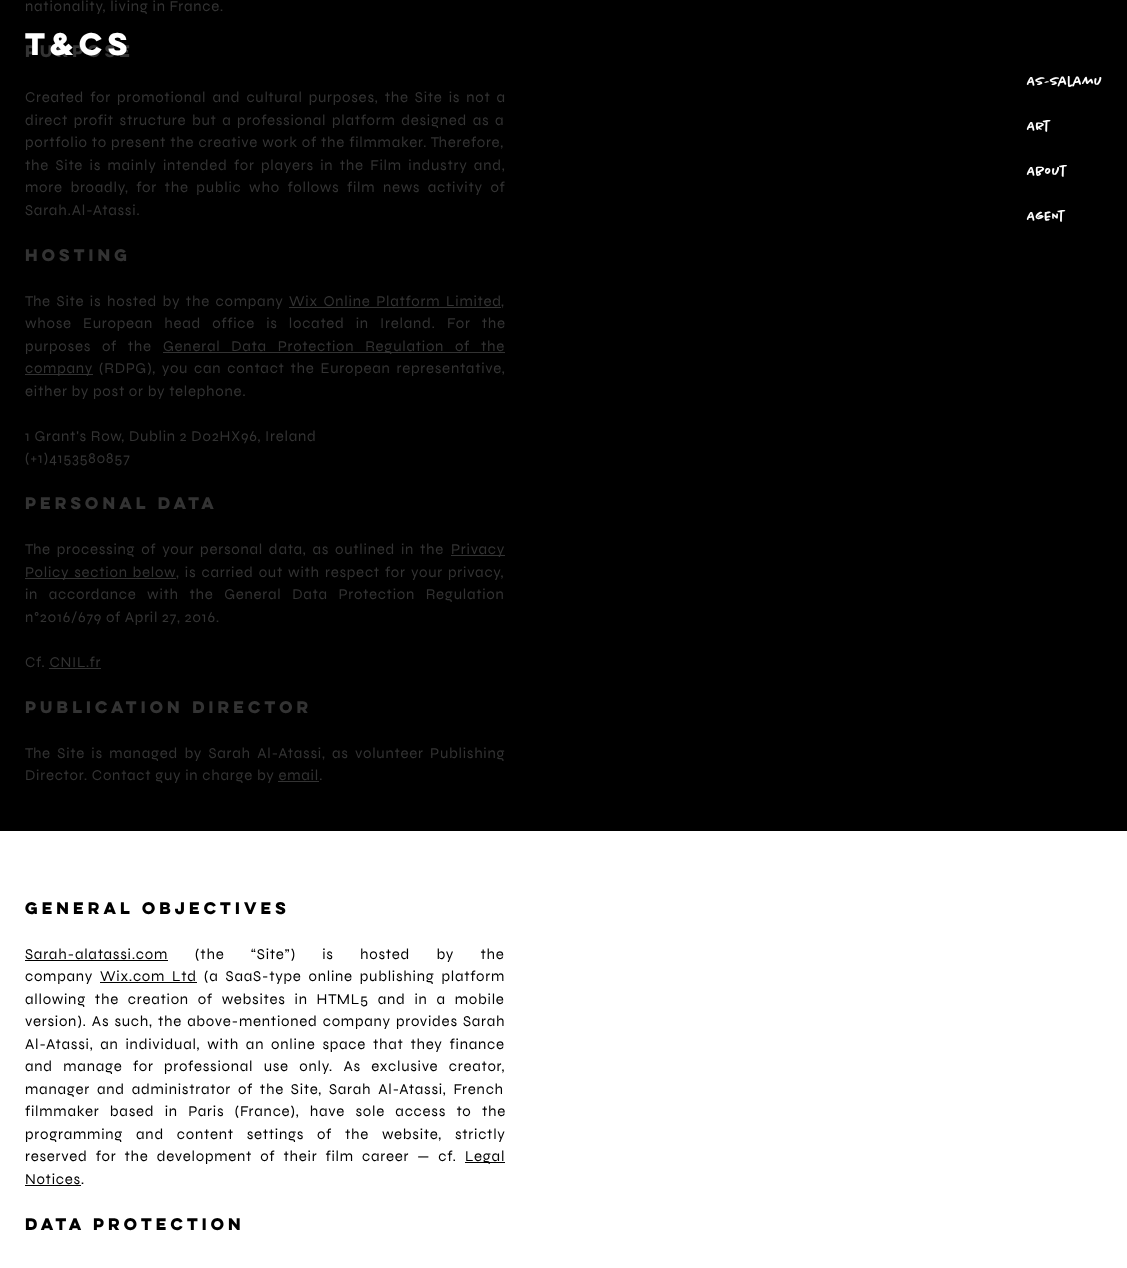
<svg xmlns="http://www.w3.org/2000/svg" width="1127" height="1268">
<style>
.a{font:15px Syne;letter-spacing:0.75px;fill:#333}
.b{font:bold 15px 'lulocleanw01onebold';letter-spacing:0.75px;fill:#333}
.c{font:bold 15px 'lulocleanw01onebold';letter-spacing:0.75px;fill:#000}
.d{font:15px Syne;letter-spacing:0.75px;fill:#000}
.e{font:bold 28px 'lulocleanw01onebold';letter-spacing:-0.5px;fill:#fff}
.f{font:500 14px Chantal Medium;fill:#fff}
</style>
<rect width="100%" height="100%" fill="#000"/>
<path fill="#333" d="M289 307h212v1H289z"/>
<path fill="#333" d="M163 352h342v1H163z"/>
<path fill="#333" d="M25 374h68v1H25z"/>
<path fill="#333" d="M451 555h54v1H451z"/>
<path fill="#333" d="M25 578h151v1H25z"/>
<path fill="#333" d="M49 668h52v1H49z"/>
<path fill="#333" d="M278 781h41v1H278z"/>
<path fill="#fff" d="M0 831h1127v437H0z"/>
<path fill="#000" d="M25 960h143v1H25z"/>
<path fill="#000" d="M100 982h97v1H100z"/>
<path fill="#000" d="M465 1162h40v1H465z"/>
<path fill="#000" d="M25 1185h56v1H25z"/>
<text class="a" x="25" y="11">nationality, living in France.</text>
<text class="b" x="25" y="57">PURPOSE</text>
<text class="a" x="25" y="102" word-spacing="2.25">Created for promotional and cultural purposes, the Site is not a</text>
<text class="a" x="25" y="125" word-spacing="1.75">direct profit structure but a professional platform designed as a</text>
<text class="a" x="25" y="147" word-spacing="0.25">portfolio to present the creative work of the filmmaker. Therefore,</text>
<text class="a" x="25" y="170" word-spacing="2.5">the Site is mainly intended for players in the Film industry and,</text>
<text class="a" x="25" y="192" word-spacing="3.75">more broadly, for the public who follows film news activity of</text>
<text class="a" x="25" y="215">Sarah.Al-Atassi.</text>
<text class="b" x="25" y="261">HOSTING</text>
<text class="a" x="25" y="306" word-spacing="1.75">The Site is hosted by the company</text>
<text class="a" x="289" y="306" word-spacing="1.75">Wix Online Platform Limited</text>
<text class="a" x="501" y="306">,</text>
<text class="a" x="25" y="328" word-spacing="7.25">whose European head office is located in Ireland. For the</text>
<text class="a" x="25" y="351" word-spacing="7">purposes of the</text>
<text class="a" x="163" y="351" word-spacing="7">General Data Protection Regulation of the</text>
<text class="a" x="25" y="373">company</text>
<text class="a" x="99" y="373" word-spacing="2">(RDPG), you can contact the European representative,</text>
<text class="a" x="25" y="396">either by post or by telephone.</text>
<text class="a" x="25" y="441">1 Grant's Row, Dublin 2 D02HX96, Ireland</text>
<text class="a" x="25" y="463">(+1)4153580857</text>
<text class="b" x="25" y="509">PERSONAL DATA</text>
<text class="a" x="25" y="554" word-spacing="2">The processing of your personal data, as outlined in the</text>
<text class="a" x="451" y="554">Privacy</text>
<text class="a" x="25" y="577" word-spacing="1">Policy section below</text>
<text class="a" x="176" y="577" word-spacing="1.25">, is carried out with respect for your privacy,</text>
<text class="a" x="25" y="599" word-spacing="6.75">in accordance with the General Data Protection Regulation</text>
<text class="a" x="25" y="622">n°2016/679 of April 27, 2016.</text>
<text class="a" x="25" y="667">Cf. CNIL.fr</text>
<text class="b" x="25" y="713">PUBLICATION DIRECTOR</text>
<text class="a" x="25" y="758" word-spacing="2.5">The Site is managed by Sarah Al-Atassi, as volunteer Publishing</text>
<text class="a" x="25" y="780">Director. Contact guy in charge by email.</text>
<text class="c" x="25" y="914">GENERAL OBJECTIVES</text>
<text class="d" x="25" y="959">Sarah-alatassi.com</text>
<text class="d" x="195" y="959" word-spacing="22.5">(the “Site”) is hosted by the</text>
<text class="d" x="25" y="981">company</text>
<text class="d" x="100" y="981" word-spacing="3">Wix.com Ltd</text>
<text class="d" x="204" y="981" word-spacing="3">(a SaaS-type online publishing platform</text>
<text class="d" x="25" y="1004" word-spacing="5">allowing the creation of websites in HTML5 and in a mobile</text>
<text class="d" x="25" y="1026" word-spacing="1.25">version). As such, the above-mentioned company provides Sarah</text>
<text class="d" x="25" y="1049" word-spacing="3">Al-Atassi, an individual, with an online space that they finance</text>
<text class="d" x="25" y="1071" word-spacing="6.5">and manage for professional use only. As exclusive creator,</text>
<text class="d" x="25" y="1094" word-spacing="3">manager and administrator of the Site, Sarah Al-Atassi, French</text>
<text class="d" x="25" y="1116" word-spacing="6.5">filmmaker based in Paris (France), have sole access to the</text>
<text class="d" x="25" y="1139" word-spacing="9">programming and content settings of the website, strictly</text>
<text class="d" x="25" y="1161" word-spacing="4.25">reserved for the development of their film career — cf.</text>
<text class="d" x="465" y="1161">Legal</text>
<text class="d" x="25" y="1184">Notices.</text>
<text class="c" x="25" y="1230">DATA PROTECTION</text>
<text class="e" x="25" y="55">T&amp;Cs</text>
<text class="f" x="1027" y="86">As-salamu</text>
<text class="f" x="1027" y="131">Art</text>
<text class="f" x="1027" y="176">About</text>
<text class="f" x="1027" y="221">AgENt</text>
</svg>
